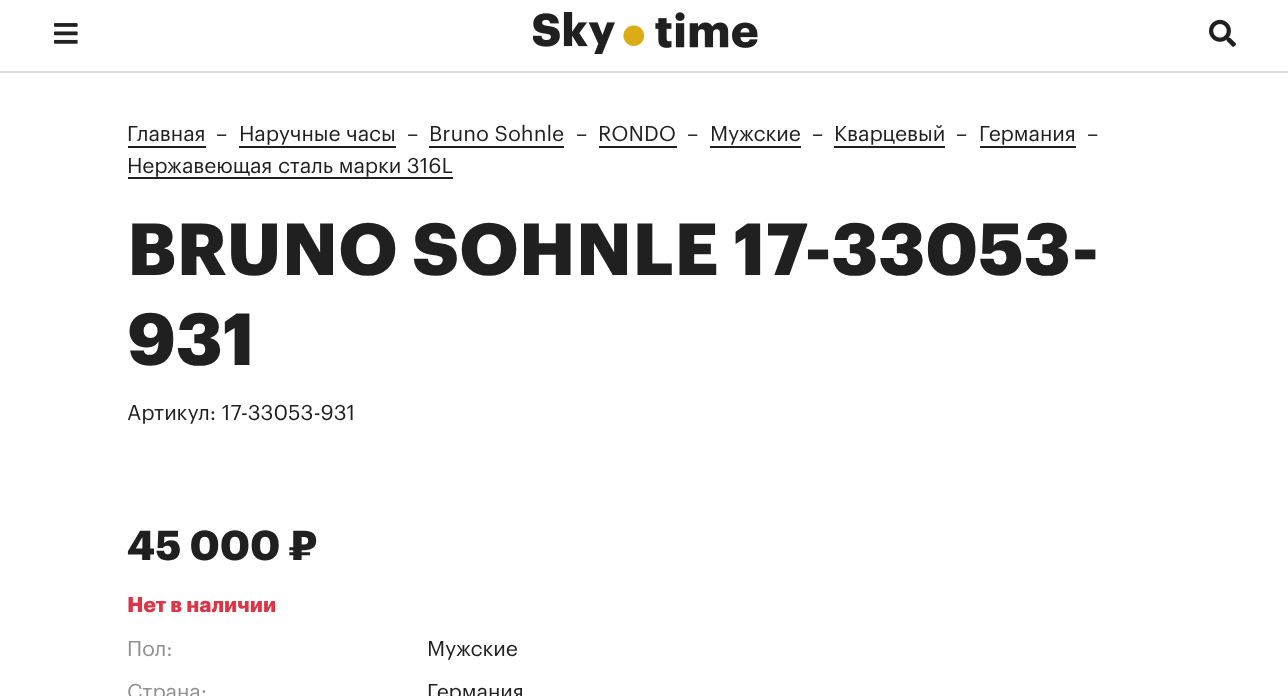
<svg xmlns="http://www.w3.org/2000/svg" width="1288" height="696">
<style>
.a{font:21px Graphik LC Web;fill:#202020}
.b{font:bold 72px Graphik LC Web;fill:#202020}
.c{font:bold 41px Graphik LC Web;fill:#202020}
.d{font:bold 21px Graphik LC Web;fill:#dc3545}
.e{font:21px Graphik LC Web;fill:#8f8f8f}
</style>
<rect width="100%" height="100%" fill="#fff"/>
<path fill="#d9d9d9" d="M0 71h1288v2H0z"/>
<image href="1.png" x="54" y="23" width="24" height="21"/>
<image href="2.png" x="533" y="12" width="225" height="42"/>
<image href="3.png" x="1209" y="19" width="27" height="28"/>
<path fill="#202020" d="M128 146h78v2H128z"/>
<path fill="#202020" d="M239 146h157v2H239z"/>
<path fill="#202020" d="M429 146h135v2H429z"/>
<path fill="#202020" d="M599 146h78v2H599z"/>
<path fill="#202020" d="M710 146h91v2H710z"/>
<path fill="#202020" d="M834 146h111v2H834z"/>
<path fill="#202020" d="M980 146h96v2H980z"/>
<path fill="#202020" d="M128 177h325v2H128z"/>
<text class="a" x="127" y="141">Главная</text>
<text class="a" x="216" y="141">–</text>
<text class="a" x="239" y="141">Наручные часы</text>
<text class="a" x="407" y="141">–</text>
<text class="a" x="429" y="141">Bruno Sohnle</text>
<text class="a" x="576" y="141">–</text>
<text class="a" x="598" y="141">RONDO</text>
<text class="a" x="687" y="141">–</text>
<text class="a" x="710" y="141">Мужские</text>
<text class="a" x="812" y="141">–</text>
<text class="a" x="834" y="141">Кварцевый</text>
<text class="a" x="956" y="141">–</text>
<text class="a" x="979" y="141">Германия</text>
<text class="a" x="1087" y="141">–</text>
<text class="a" x="127" y="173">Нержавеющая сталь марки 316L</text>
<text class="b" x="127" y="275">BRUNO SOHNLE 17-33053-</text>
<text class="b" x="127" y="365">931</text>
<text class="a" x="127" y="420">Артикул: 17-33053-931</text>
<text class="c" x="127" y="560">45 000 ₽</text>
<text class="d" x="127" y="612">Нет в наличии</text>
<text class="e" x="127" y="656">Пол:</text>
<text class="a" x="427" y="656">Мужские</text>
<text class="e" x="127" y="699">Страна:</text>
<text class="a" x="427" y="699">Германия</text>
</svg>
